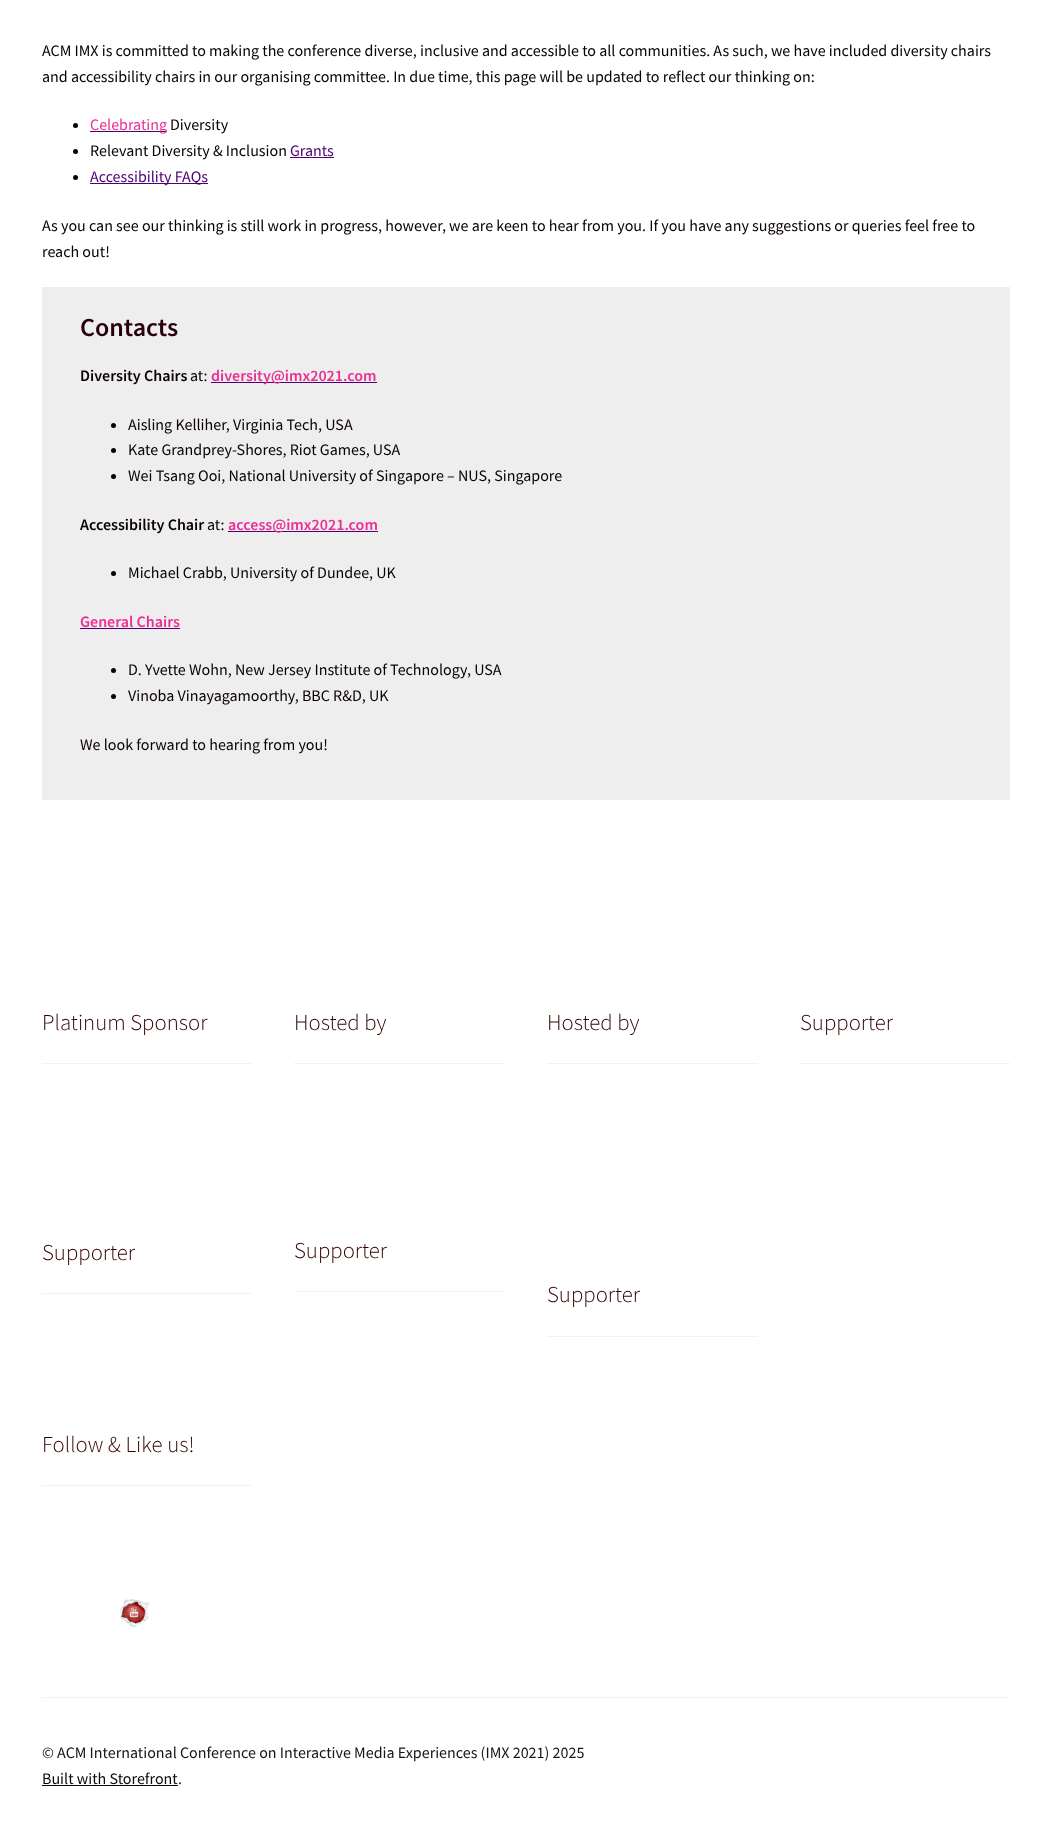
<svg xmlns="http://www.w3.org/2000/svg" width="1052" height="1846">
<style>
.a{font:16px Source Sans Pro;fill:#0a0000}
.b{font:16px Source Sans Pro;fill:#eb2e94}
.c{font:16px Source Sans Pro;fill:#4e0075}
.d{font:600 26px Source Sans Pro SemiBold;fill:#28000c}
.e{font:600 16px Source Sans Pro SemiBold;fill:#0a0000}
.f{font:600 16px Source Sans Pro SemiBold;fill:#eb2e94}
.g{font:300 22.75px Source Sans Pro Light;fill:#300}
.h{font:16px Source Sans Pro;fill:#161616}
.i{font:16px Source Sans Pro;fill:#0a0a0a}
</style>
<rect width="100%" height="100%" fill="#fff"/>
<circle fill="#0a0000" cx="75.5" cy="125.5" r="2.5"/>
<path fill="#4e0075" d="M90 131h77v1H90z"/>
<circle fill="#0a0000" cx="75.5" cy="151.5" r="2.5"/>
<path fill="#4e0075" d="M290 157h44v1H290z"/>
<circle fill="#0a0000" cx="75.5" cy="177.5" r="2.5"/>
<path fill="#4e0075" d="M90 183h118v1H90z"/>
<path fill="#eee" d="M42 287h968v513H42z"/>
<path fill="#4e0075" d="M211 382h166v1H211z"/>
<circle fill="#0a0000" cx="113.5" cy="425.5" r="2.5"/>
<circle fill="#0a0000" cx="113.5" cy="450.5" r="2.5"/>
<circle fill="#0a0000" cx="113.5" cy="476.5" r="2.5"/>
<path fill="#4e0075" d="M228 531h150v1H228z"/>
<circle fill="#0a0000" cx="113.5" cy="573.5" r="2.5"/>
<path fill="#4e0075" d="M80 628h100v1H80z"/>
<circle fill="#0a0000" cx="113.5" cy="670.5" r="2.5"/>
<circle fill="#0a0000" cx="113.5" cy="696.5" r="2.5"/>
<path fill="#f2f2f2" d="M42 1697h968v1H42z"/>
<path fill="#f2f2f2" d="M42 1063h210v1H42z"/>
<path fill="#f2f2f2" d="M42 1293h210v1H42z"/>
<path fill="#f2f2f2" d="M42 1485h210v1H42z"/>
<image href="1.png" x="119" y="1599" width="31" height="29"/>
<path fill="#f2f2f2" d="M294 1063h211v1H294z"/>
<path fill="#f2f2f2" d="M294 1291h211v1H294z"/>
<path fill="#f2f2f2" d="M547 1063h211v1H547z"/>
<path fill="#f2f2f2" d="M547 1336h211v1H547z"/>
<path fill="#f2f2f2" d="M800 1063h210v1H800z"/>
<path fill="#0a0a0a" d="M42 1785h136v1H42z"/>
<text class="a" x="42" y="56">ACM IMX is committed to making the conference diverse, inclusive and accessible to all communities. As such, we have included diversity chairs</text>
<text class="a" x="42" y="82">and accessibility chairs in our organising committee. In due time, this page will be updated to reflect our thinking on:</text>
<text class="b" x="90" y="130">Celebrating</text>
<text class="a" x="170" y="130">Diversity</text>
<text class="a" x="90" y="156">Relevant Diversity &amp; Inclusion</text>
<text class="c" x="290" y="156">Grants</text>
<text class="c" x="90" y="182">Accessibility FAQs</text>
<text class="a" x="42" y="231">As you can see our thinking is still work in progress, however, we are keen to hear from you. If you have any suggestions or queries feel free to</text>
<text class="a" x="42" y="257">reach out!</text>
<text class="d" x="80" y="336">Contacts</text>
<text class="e" x="80" y="381">Diversity Chairs</text>
<text class="a" x="190" y="381">at:</text>
<text class="f" x="211" y="381">diversity@imx2021.com</text>
<text class="a" x="128" y="430">Aisling Kelliher, Virginia Tech, USA</text>
<text class="a" x="128" y="455">Kate Grandprey-Shores, Riot Games, USA</text>
<text class="a" x="128" y="481">Wei Tsang Ooi, National University of Singapore – NUS, Singapore</text>
<text class="e" x="80" y="530">Accessibility Chair</text>
<text class="a" x="207" y="530">at:</text>
<text class="f" x="228" y="530">access@imx2021.com</text>
<text class="a" x="128" y="578">Michael Crabb, University of Dundee, UK</text>
<text class="f" x="80" y="627">General Chairs</text>
<text class="a" x="128" y="675">D. Yvette Wohn, New Jersey Institute of Technology, USA</text>
<text class="a" x="128" y="701">Vinoba Vinayagamoorthy, BBC R&amp;D, UK</text>
<text class="a" x="80" y="750">We look forward to hearing from you!</text>
<text class="g" x="42" y="1030">Platinum Sponsor</text>
<text class="g" x="42" y="1260">Supporter</text>
<text class="g" x="42" y="1452">Follow &amp; Like us!</text>
<text class="g" x="294" y="1030">Hosted by</text>
<text class="g" x="294" y="1258">Supporter</text>
<text class="g" x="547" y="1030">Hosted by</text>
<text class="g" x="547" y="1302">Supporter</text>
<text class="g" x="800" y="1030">Supporter</text>
<text class="h" x="42" y="1758">© ACM International Conference on Interactive Media Experiences (IMX 2021) 2025</text>
<text class="i" x="42" y="1784">Built with Storefront</text>
<text class="h" x="178" y="1784">.</text>
</svg>
